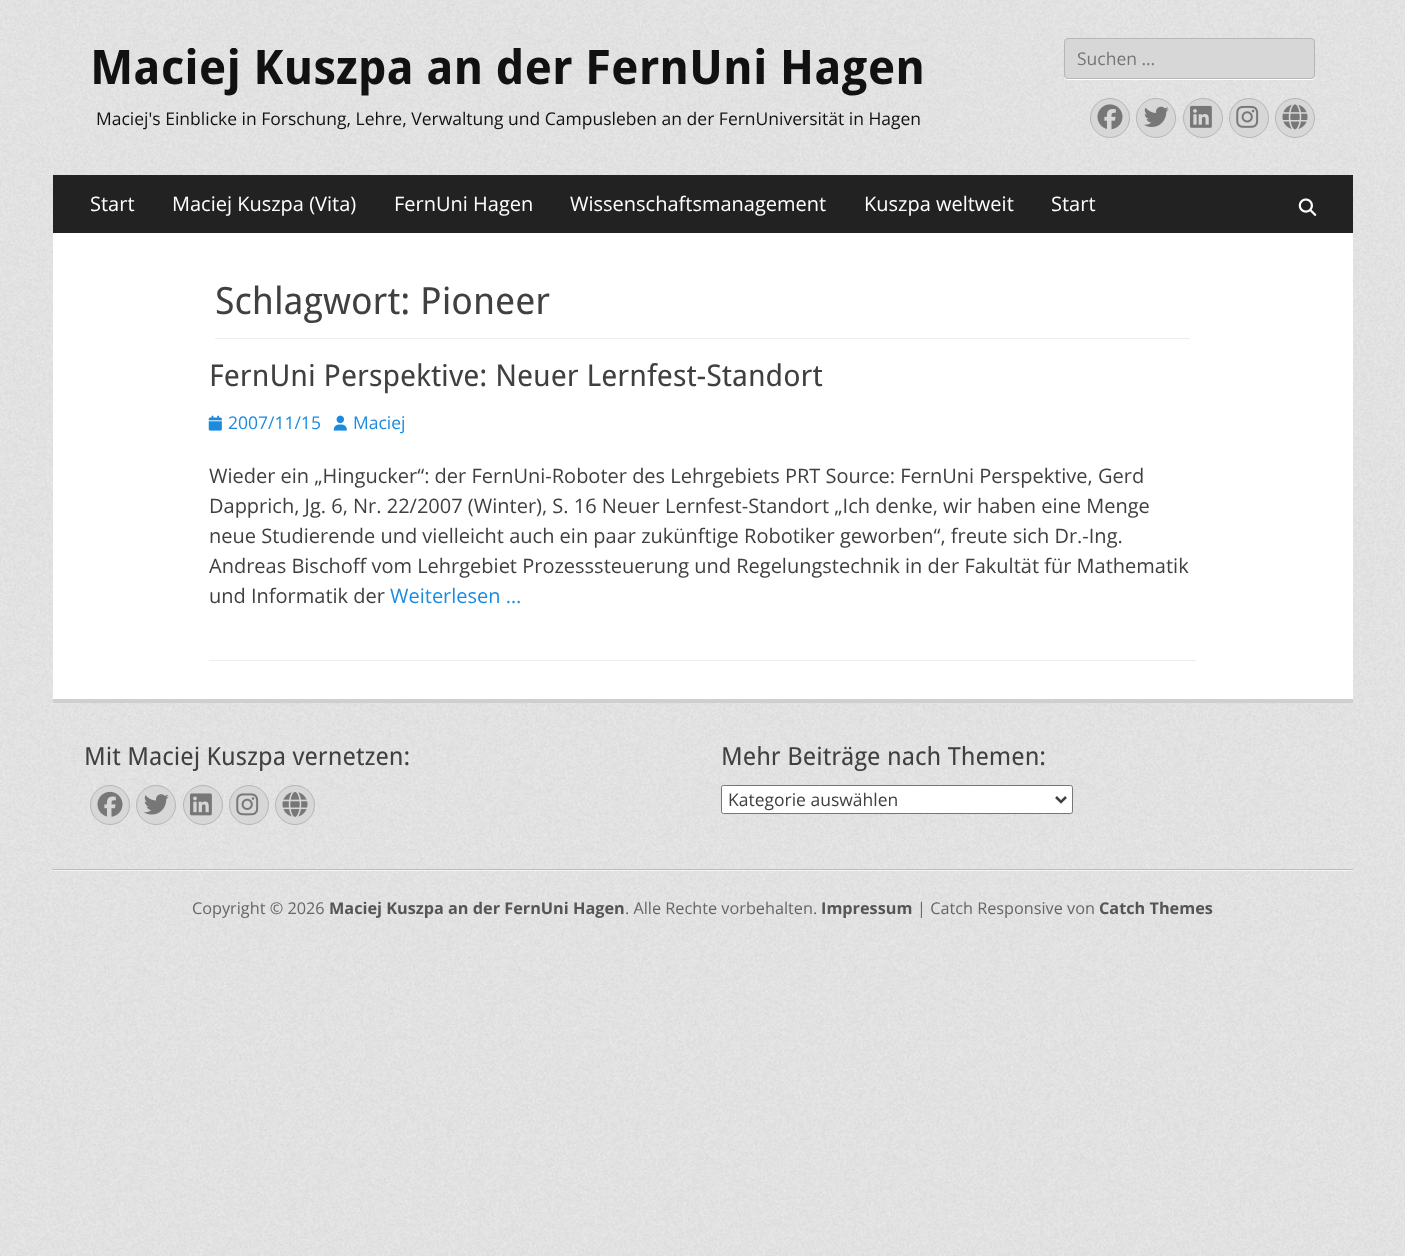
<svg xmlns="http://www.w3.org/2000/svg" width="1405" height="1256">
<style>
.a{font:bold 47.5px Droid Sans;fill:#111}
.b{font:17.5px Open Sans;fill:#111}
.c{font:17.5px Open Sans;fill:#757575}
.d{font:20px Open Sans;fill:#fff}
.e{font:37.5px Droid Sans;fill:#404040}
.f{font:30px Droid Sans;fill:#404040}
.g{font:17.5px Open Sans;fill:#1b8be0}
.h{font:20px Open Sans;fill:#404040}
.i{font:20px Open Sans;fill:#1b8be0}
.j{font:25px Droid Sans;fill:#404040}
.k{font:17.5px Open Sans;fill:#404040}
.l{font:16.25px Open Sans;fill:#666}
.m{font:bold 16.25px Open Sans;fill:#555}
</style>
<rect width="100%" height="100%" fill="#fff"/>
<image href="1.png" x="0" y="0" width="1405" height="1256"/>
<path fill="#fff" d="M1064 76l1 3l3 1h243c3 0 4-2 4-5c0 2-2 4-4 4h-243c-2 0-3-1-4-3z"/>
<rect fill="#d7d7d7" stroke="#b6b6b6" x="1064.5" y="38.5" width="250" height="40" rx="3.5"/>
<circle fill="#d7d7d7" stroke="#b6b6b6" cx="1110" cy="118" r="19.5"/>
<image href="2.png" x="1097" y="104" width="26" height="26"/>
<circle fill="#d7d7d7" stroke="#b6b6b6" cx="1156" cy="118" r="19.5"/>
<image href="3.png" x="1144" y="106" width="25" height="21"/>
<circle fill="#d7d7d7" stroke="#b6b6b6" cx="1203" cy="118" r="19.5"/>
<image href="4.png" x="1190" y="105" width="22" height="23"/>
<circle fill="#d7d7d7" stroke="#b6b6b6" cx="1249" cy="118" r="19.5"/>
<image href="5.png" x="1236" y="105" width="23" height="23"/>
<circle fill="#d7d7d7" stroke="#b6b6b6" cx="1295" cy="118" r="19.5"/>
<image href="6.png" x="1282" y="104" width="26" height="26"/>
<path fill="#222" d="M53 175h1300v58H53z"/>
<image href="7.png" x="1298" y="198" width="19" height="18"/>
<path fill="#fff" d="M53 233h1300v466H53z"/>
<path fill="#eee" d="M215 338h975v1H215z"/>
<path fill="#eee" d="M209 660h987v1H209z"/>
<image href="8.png" x="208" y="415" width="14" height="16"/>
<image href="9.png" x="333" y="415" width="14" height="16"/>
<path fill="#cfcfcf" d="M53 699h1300v4H53z"/>
<path fill="#bcbcbc" d="M53 869h1300v1H53z"/>
<circle fill="#d7d7d7" stroke="#b6b6b6" cx="110" cy="805" r="19.5"/>
<image href="10.png" x="97" y="791" width="26" height="26"/>
<circle fill="#d7d7d7" stroke="#b6b6b6" cx="156" cy="805" r="19.5"/>
<image href="11.png" x="144" y="794" width="25" height="21"/>
<circle fill="#d7d7d7" stroke="#b6b6b6" cx="203" cy="805" r="19.5"/>
<image href="12.png" x="190" y="793" width="22" height="23"/>
<circle fill="#d7d7d7" stroke="#b6b6b6" cx="249" cy="805" r="19.5"/>
<image href="13.png" x="236" y="793" width="23" height="23"/>
<circle fill="#d7d7d7" stroke="#b6b6b6" cx="295" cy="805" r="19.5"/>
<image href="14.png" x="282" y="792" width="26" height="25"/>
<rect fill="#fff" stroke="#767676" x="721.5" y="785.5" width="351" height="28" rx="2"/>
<path fill="none" stroke="#404040" stroke-width="2.5" d="M1056 797l5 5l5-5"/>
<path fill="#f4f4f4" d="M53 870h1300v1H53z"/>
<text class="a" x="90" y="84">Maciej Kuszpa an der FernUni Hagen</text>
<text class="b" x="96" y="125">Maciej's Einblicke in Forschung, Lehre, Verwaltung und Campusleben an der FernUniversität in Hagen</text>
<text class="c" x="1077" y="65">Suchen …</text>
<text class="d" x="90" y="211">Start</text>
<text class="d" x="172" y="211">Maciej Kuszpa (Vita)</text>
<text class="d" x="394" y="211">FernUni Hagen</text>
<text class="d" x="570" y="211">Wissenschaftsmanagement</text>
<text class="d" x="864" y="211">Kuszpa weltweit</text>
<text class="d" x="1051" y="211">Start</text>
<text class="e" x="215" y="314">Schlagwort: Pioneer</text>
<text class="f" x="209" y="386">FernUni Perspektive: Neuer Lernfest-Standort</text>
<text class="g" x="228" y="429">2007/11/15</text>
<text class="g" x="353" y="429">Maciej</text>
<text class="h" x="209" y="483">Wieder ein „Hingucker“: der FernUni-Roboter des Lehrgebiets PRT Source: FernUni Perspektive, Gerd</text>
<text class="h" x="209" y="513">Dapprich, Jg. 6, Nr. 22/2007 (Winter), S. 16 Neuer Lernfest-Standort „Ich denke, wir haben eine Menge</text>
<text class="h" x="209" y="543">neue Studierende und vielleicht auch ein paar zukünftige Robotiker geworben“, freute sich Dr.-Ing.</text>
<text class="h" x="209" y="573">Andreas Bischoff vom Lehrgebiet Prozesssteuerung und Regelungstechnik in der Fakultät für Mathematik</text>
<text class="h" x="209" y="603">und Informatik der</text>
<text class="i" x="390" y="603">Weiterlesen …</text>
<text class="j" x="84" y="765">Mit Maciej Kuszpa vernetzen:</text>
<text class="j" x="721" y="765">Mehr Beiträge nach Themen:</text>
<text class="k" x="728" y="806">Kategorie auswählen</text>
<text class="l" x="192" y="914">Copyright © 2026</text>
<text class="m" x="329" y="914">Maciej Kuszpa an der FernUni Hagen</text>
<text class="l" x="625" y="914">. Alle Rechte vorbehalten.</text>
<text class="m" x="821" y="914">Impressum</text>
<text class="l" x="917" y="914">| Catch Responsive von</text>
<text class="m" x="1099" y="914">Catch Themes</text>
</svg>
